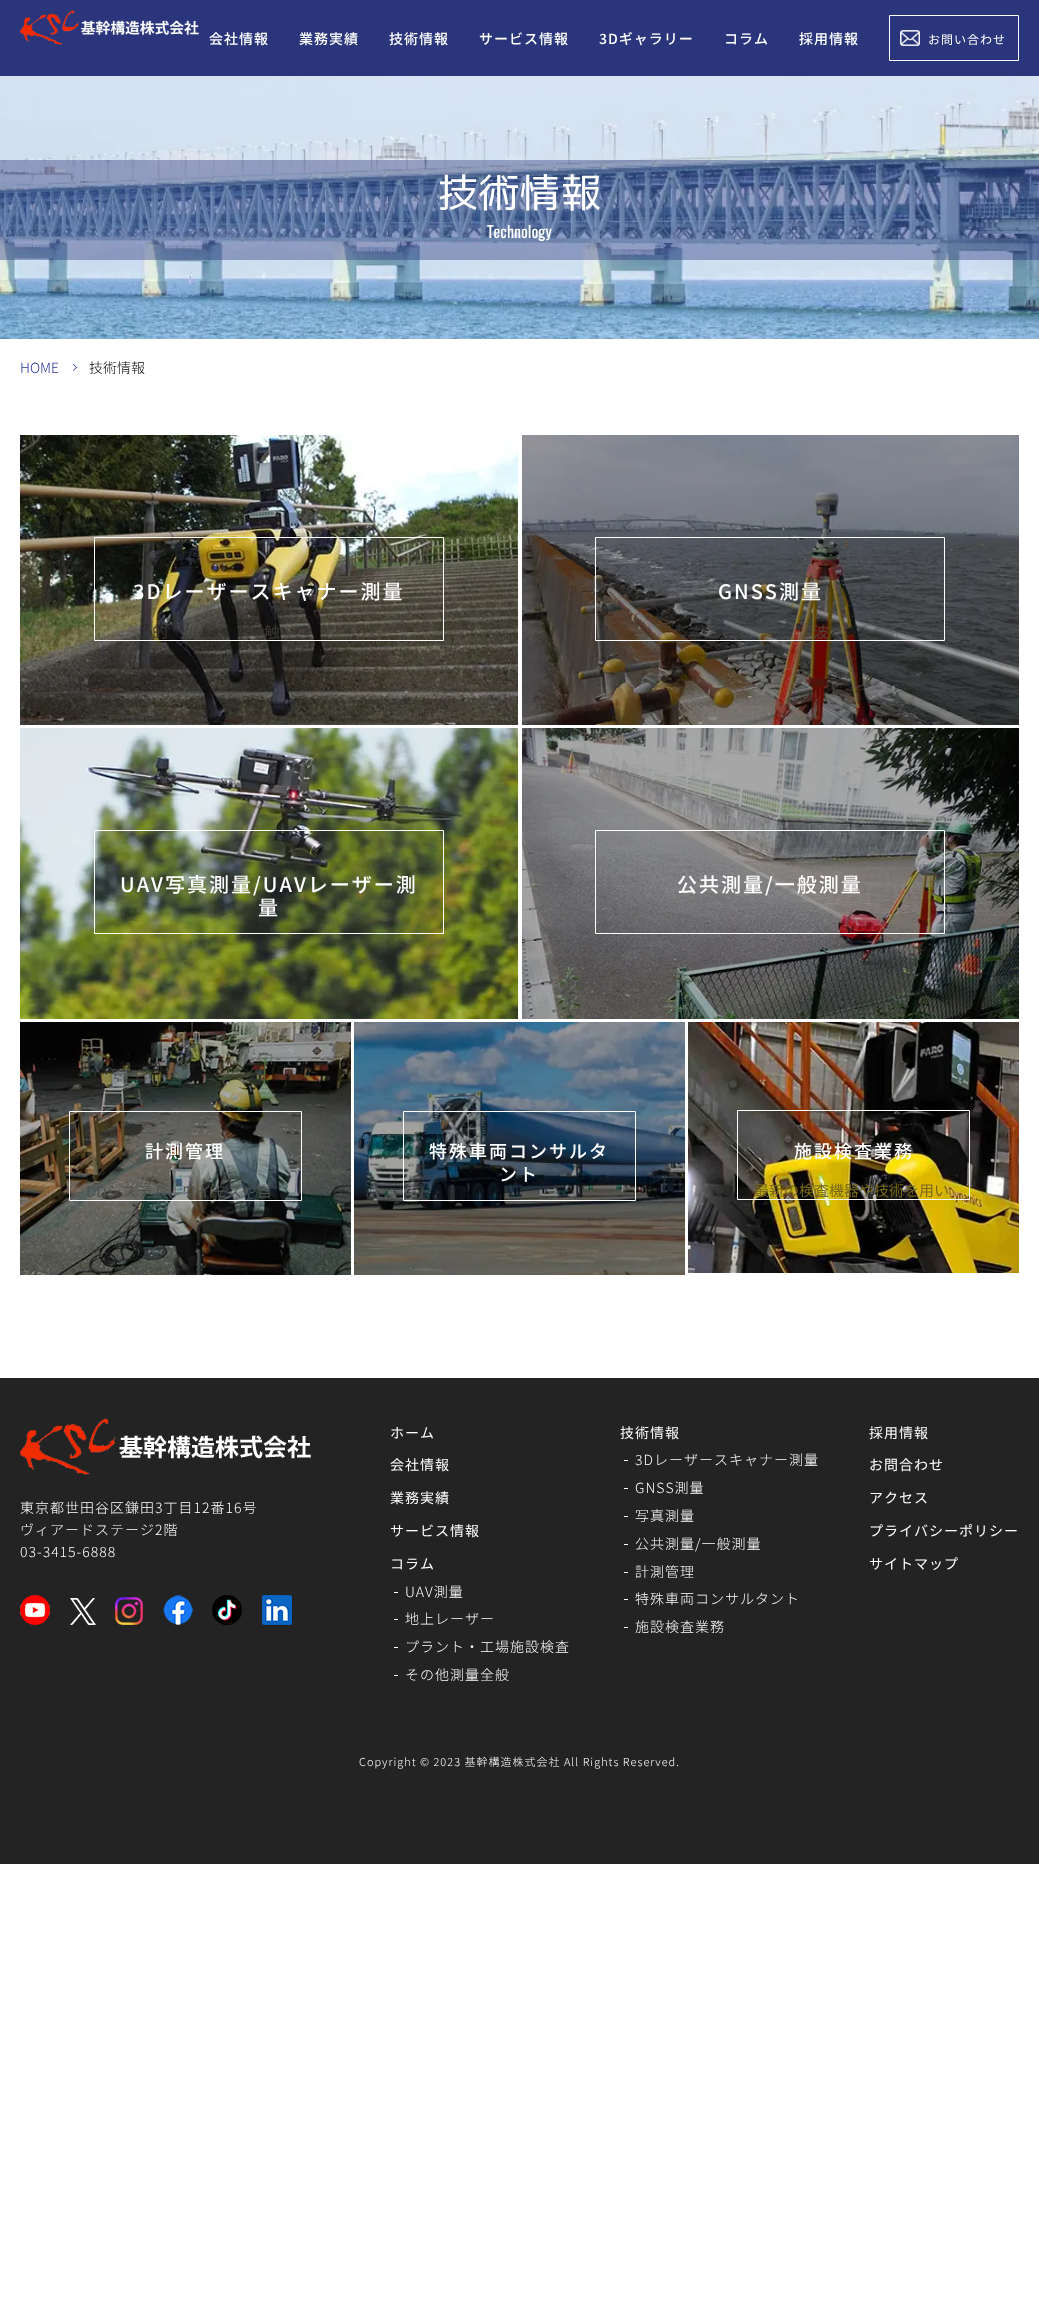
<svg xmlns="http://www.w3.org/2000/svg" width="1039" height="2320">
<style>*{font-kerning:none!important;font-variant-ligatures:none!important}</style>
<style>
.a{font:500 14px Noto Sans JP;letter-spacing:1px;fill:#fff}
.b{font:12px Noto Sans JP;letter-spacing:1px;fill:#fff}
.c{font:40px 'M PLUS 1p';letter-spacing:1px;fill:#fff}
.d{font:16px Oswald;fill:#fff}
.e{font:300 14px Noto Sans JP;fill:#27369a}
.f{font:300 14px Noto Sans JP;fill:#000}
.g{font:500 20px Noto Sans JP;letter-spacing:2px;fill:#fff}
.h{font:16px Noto Sans JP;fill:#3b3831}
.i{font:16px Noto Sans JP;fill:#4d413a}
.j{font:500 18px Noto Sans JP;letter-spacing:2px;fill:#fff}
.k{font:15px Noto Sans JP;fill:#4c514f}
.l{font:15px Noto Sans JP;fill:#77681a}
.m{font:300 14px Noto Sans JP;letter-spacing:1px;fill:#fff}
.n{font:14px Noto Sans JP;letter-spacing:1px;fill:#fff}
.o{font:300 11px Noto Sans JP;letter-spacing:1px;fill:#fff}
</style>
<rect width="100%" height="100%" fill="#fff"/>
<path fill="#2a357b" d="M0 0h1039v76H0z"/>
<image href="1.png" x="20" y="10" width="180" height="35"/>
<image href="2.png" x="900" y="30" width="20" height="16"/>
<path fill="none" stroke="#fff" d="M889.5 15.5h129v45H889.5z"/>
<image href="3.png" x="0" y="76" width="1039" height="263"/>
<path fill="#2a357b66" d="M0 160h1039v100H0z"/>
<path fill="#27369a" d="M73.5 364l3.5 3.5l-.5 .5l-3.5-3.5z"/>
<path fill="#27369a" d="M76.5 367l.5 .5l-3.5 3.5l-.5-.5z"/>
<image href="4.png" x="20" y="435" width="498" height="290"/>
<path fill="none" stroke="#fff" d="M94.5 537.5h349v103H94.5z"/>
<image href="5.png" x="522" y="435" width="497" height="290"/>
<path fill="none" stroke="#fff" d="M595.5 537.5h349v103H595.5z"/>
<image href="6.png" x="20" y="728" width="498" height="291"/>
<path fill="none" stroke="#fff" d="M94.5 830.5h349v103H94.5z"/>
<image href="7.png" x="522" y="728" width="497" height="291"/>
<path fill="none" stroke="#fff" d="M595.5 830.5h349v103H595.5z"/>
<image href="8.png" x="20" y="1022" width="331" height="253"/>
<path fill="none" stroke="#fff" d="M69.5 1111.5h232v89H69.5z"/>
<image href="9.png" x="354" y="1022" width="331" height="253"/>
<path fill="none" stroke="#fff" d="M403.5 1111.5h232v89H403.5z"/>
<image href="10.png" x="688" y="1022" width="331" height="251"/>
<path fill="none" stroke="#fff" d="M737.5 1110.5h232v89H737.5z"/>
<path fill="#232323" d="M0 1378h1039v486H0z"/>
<image href="11.png" x="20" y="1418" width="291" height="57"/>
<image href="12.png" x="20" y="1595" width="30" height="30"/>
<image href="13.png" x="70" y="1598" width="26" height="27"/>
<image href="14.png" x="115" y="1597" width="28" height="28"/>
<image href="15.png" x="163" y="1595" width="30" height="30"/>
<image href="16.png" x="212" y="1595" width="30" height="30"/>
<image href="17.png" x="262" y="1595" width="30" height="30"/>
<path fill="#fff" d="M394 1592h4v1H394z"/>
<path fill="#fff" d="M394 1619h4v1H394z"/>
<path fill="#fff" d="M394 1647h4v1H394z"/>
<path fill="#fff" d="M394 1675h4v1H394z"/>
<path fill="#fff" d="M624 1460h4v1H624z"/>
<path fill="#fff" d="M624 1488h4v1H624z"/>
<path fill="#fff" d="M624 1516h4v1H624z"/>
<path fill="#fff" d="M624 1544h4v1H624z"/>
<path fill="#fff" d="M624 1572h4v1H624z"/>
<path fill="#fff" d="M624 1599h4v1H624z"/>
<path fill="#fff" d="M624 1627h4v1H624z"/>
<text class="a" x="209" y="44">会社情報</text>
<text class="a" x="299" y="44">業務実績</text>
<text class="a" x="389" y="44">技術情報</text>
<text class="a" x="479" y="44">サービス情報</text>
<text class="a" x="599" y="44">3Dギャラリー</text>
<text class="a" x="724" y="44">コラム</text>
<text class="a" x="799" y="44">採用情報</text>
<text class="b" x="928" y="44">お問い合わせ</text>
<text class="c" x="438" y="207">技術情報</text>
<text class="d" x="487" y="238">Technology</text>
<text class="e" x="20" y="373">HOME</text>
<text class="f" x="89" y="373">技術情報</text>
<text class="g" x="133" y="599">3Dレーザースキャナー測量</text>
<text class="h" x="152" y="638">的</text>
<text class="h" x="264" y="638">触</text>
<text class="g" x="718" y="599">GNSS測量</text>
<text class="i" x="813" y="638">波</text>
<text class="g" x="120" y="892">UAV写真測量/UAVレーザー測</text>
<text class="g" x="258" y="915">量</text>
<text class="g" x="677" y="892">公共測量/一般測量</text>
<text class="j" x="145" y="1158">計測管理</text>
<text class="k" x="86" y="1197">DDシステム、ワイモスや自</text>
<text class="j" x="429" y="1158">特殊車両コンサルタ</text>
<text class="j" x="499" y="1181">ント</text>
<text class="j" x="794" y="1158">施設検査業務</text>
<text class="l" x="754" y="1196">最新の検査機器や技術を用い</text>
<text class="m" x="20" y="1513">東京都世田谷区鎌田3丁目12番16号</text>
<text class="m" x="20" y="1535">ヴィアードステージ2階</text>
<text class="m" x="20" y="1557">03-3415-6888</text>
<text class="n" x="390" y="1438">ホーム</text>
<text class="n" x="390" y="1470">会社情報</text>
<text class="n" x="390" y="1503">業務実績</text>
<text class="n" x="390" y="1536">サービス情報</text>
<text class="n" x="390" y="1569">コラム</text>
<text class="m" x="405" y="1597">UAV測量</text>
<text class="m" x="405" y="1624">地上レーザー</text>
<text class="m" x="405" y="1652">プラント・工場施設検査</text>
<text class="m" x="405" y="1680">その他測量全般</text>
<text class="n" x="620" y="1438">技術情報</text>
<text class="m" x="635" y="1465">3Dレーザースキャナー測量</text>
<text class="m" x="635" y="1493">GNSS測量</text>
<text class="m" x="635" y="1521">写真測量</text>
<text class="m" x="635" y="1549">公共測量/一般測量</text>
<text class="m" x="635" y="1577">計測管理</text>
<text class="m" x="635" y="1604">特殊車両コンサルタント</text>
<text class="m" x="635" y="1632">施設検査業務</text>
<text class="n" x="869" y="1438">採用情報</text>
<text class="n" x="869" y="1470">お問合わせ</text>
<text class="n" x="869" y="1503">アクセス</text>
<text class="n" x="869" y="1536">プライバシーポリシー</text>
<text class="n" x="869" y="1569">サイトマップ</text>
<text class="o" x="359" y="1766">Copyright © 2023 基幹構造株式会社 All Rights Reserved.</text>
</svg>
